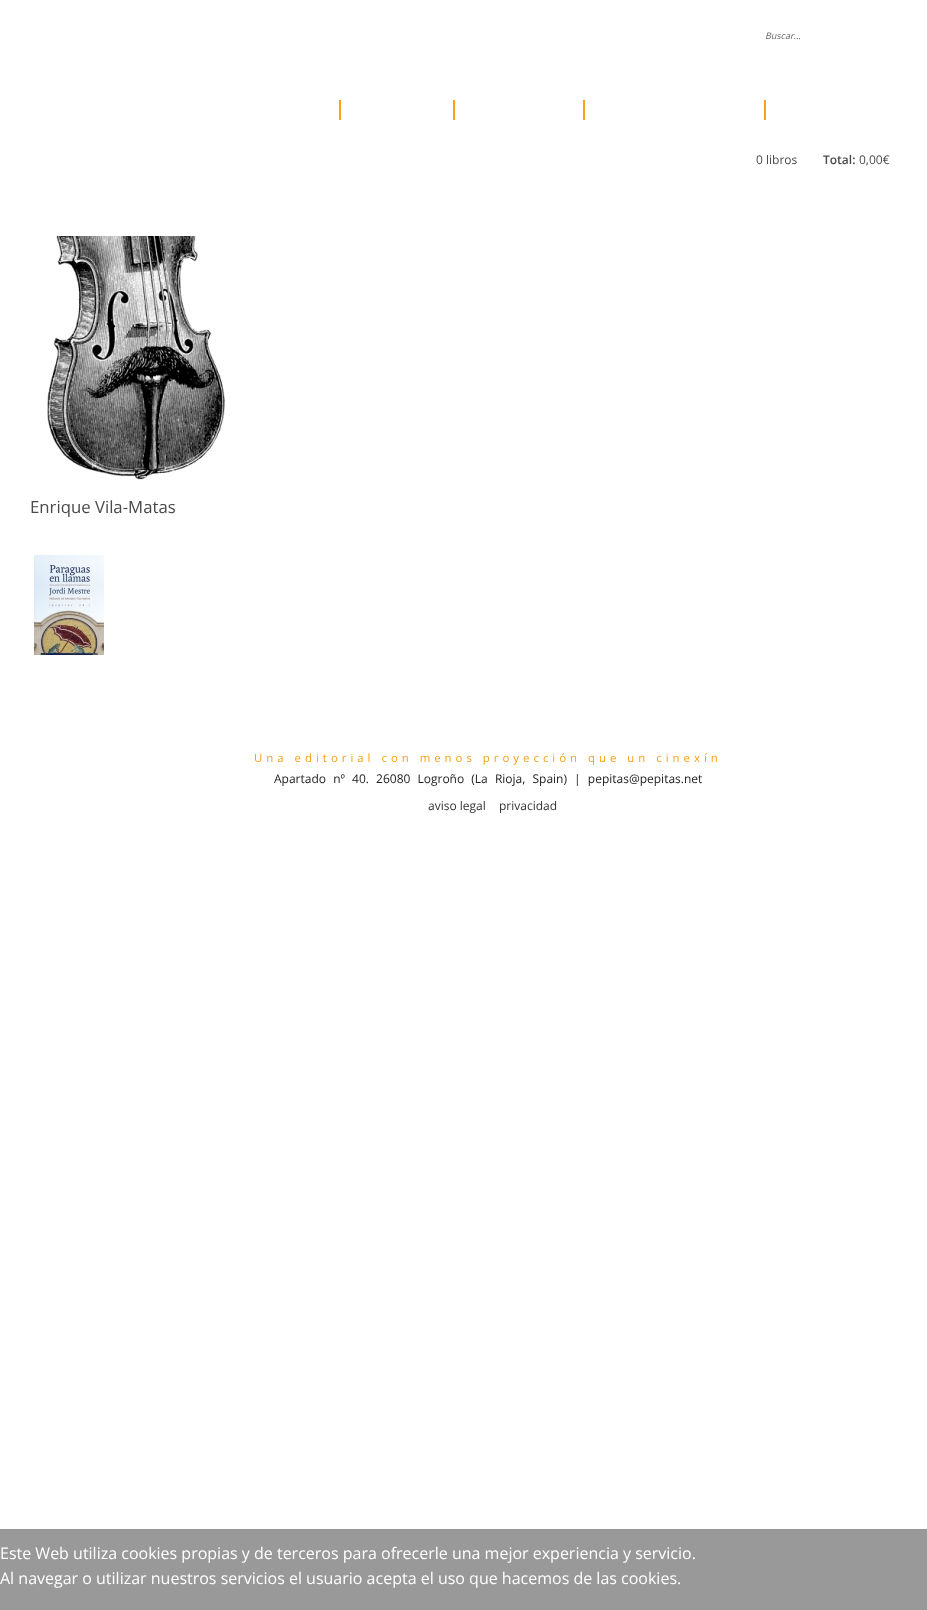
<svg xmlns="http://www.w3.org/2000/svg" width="927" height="1610">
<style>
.a{font:italic 9px Open Sans;fill:#666}
.b{font:12px Open Sans;fill:#494949}
.c{font:600 12px Open Sans;fill:#494949}
.d{font:16.75px Open Sans;fill:#494949}
.e{font:11.4px Open Sans;letter-spacing:4px;fill:#f9a117}
.f{font:12px Open Sans;fill:#222}
.g{font:12px Open Sans;fill:#333}
.h{font:16px Open Sans;fill:#fff}
</style>
<rect width="100%" height="100%" fill="#fff"/>
<path fill="#f9a117" d="M339 100h2v20H339z"/>
<path fill="#f9a117" d="M453 100h2v20H453z"/>
<path fill="#f9a117" d="M583 100h2v20H583z"/>
<path fill="#f9a117" d="M764 100h2v20H764z"/>
<image href="1.png" x="47" y="236" width="178" height="244"/>
<image href="2.png" x="34" y="555" width="70" height="100"/>
<path fill="#999" d="M0 1529h927v81H0z"/>
<text class="a" x="765" y="39">Buscar...</text>
<text class="b" x="756" y="164">0 libros</text>
<text class="c" x="823" y="164">Total:</text>
<text class="b" x="859" y="164">0,00€</text>
<text class="d" x="30" y="513">Enrique Vila-Matas</text>
<text class="e" x="254" y="762">Una editorial con menos proyección que un cinexín</text>
<text class="f" x="274" y="783" word-spacing="4">Apartado nº 40. 26080 Logroño (La Rioja, Spain) | pepitas@pepitas.net</text>
<text class="g" x="428" y="810">aviso legal</text>
<text class="g" x="499" y="810">privacidad</text>
<text class="h" x="0" y="1559">Este Web utiliza cookies propias y de terceros para ofrecerle una mejor experiencia y servicio.</text>
<text class="h" x="0" y="1584">Al navegar o utilizar nuestros servicios el usuario acepta el uso que hacemos de las cookies.</text>
</svg>
